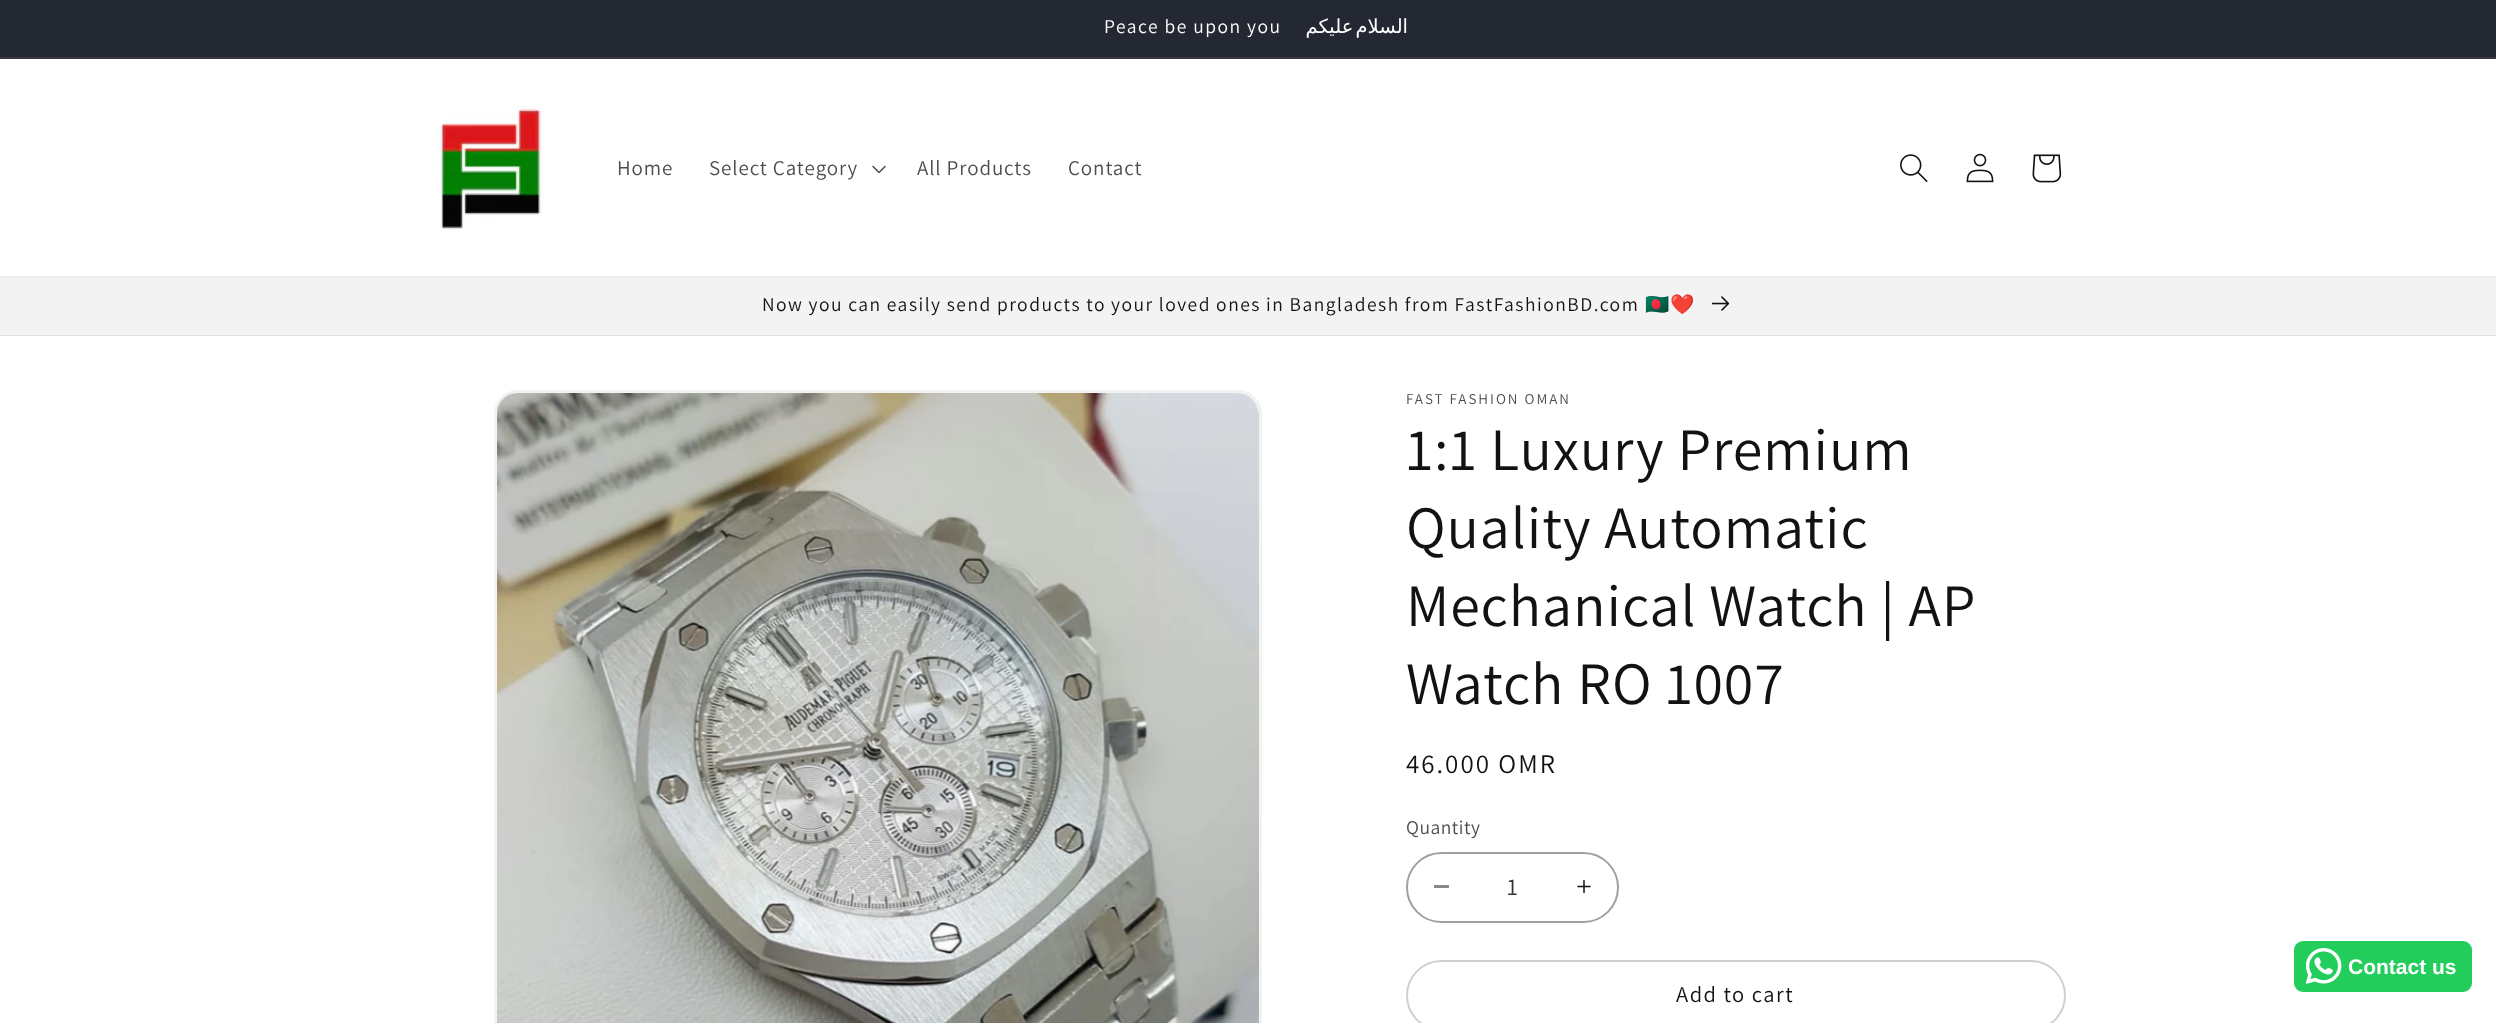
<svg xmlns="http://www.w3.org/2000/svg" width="2496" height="1023">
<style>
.a{font:19.5px Assistant;letter-spacing:1.5px;fill:#fff}
.b{font:19.5px DejaVu Sans;letter-spacing:1.5px;direction:rtl;fill:#fff}
.c{font:21px Assistant;letter-spacing:0.9px;fill:#4d4d4d}
.d{font:19.5px Assistant;letter-spacing:1.5px;fill:#121212}
.e{font:19.5px Noto Color Emoji;letter-spacing:1.5px;fill:#121212}
.f{font:15px Assistant;letter-spacing:2px;fill:#4d4d4d}
.g{font:60px Assistant;letter-spacing:0.9px;fill:#121212}
.h{font:27px Assistant;letter-spacing:2px;fill:#121212}
.i{font:19.5px Assistant;letter-spacing:0.5px;fill:#4d4d4d}
.j{font:24px Assistant;fill:#363636}
.k{font:22.5px Assistant;letter-spacing:1.5px;fill:#121212}
.l{font:bold 21px Liberation Sans;fill:#fff}
</style>
<rect width="100%" height="100%" fill="#fff"/>
<path fill="#242833" d="M0 0h2496v57H0z"/>
<path fill="#363943" d="M0 57h2496v2H0z"/>
<path fill="#ececec" d="M0 276h2496v2H0z"/>
<image href="1.png" x="437" y="106" width="106" height="125"/>
<image href="2.png" x="872" y="165" width="14" height="9"/>
<image href="3.png" x="1900" y="154" width="28" height="28"/>
<image href="4.png" x="1966" y="153" width="28" height="30"/>
<image href="5.png" x="2032" y="154" width="30" height="29"/>
<path fill="#f3f3f3" d="M0 278h2496v57H0z"/>
<path fill="#e1e1e1" d="M0 335h2496v1H0z"/>
<image href="6.png" x="1712" y="296" width="18" height="15"/>
<rect fill="none" stroke="#f3f3f3" stroke-width="3" x="495.5" y="391.5" width="765" height="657" rx="22.5"/>
<image href="7.png" x="497" y="393" width="762" height="630"/>
<path fill="#898989" d="M1434 885h15v3H1434z"/>
<image href="8.png" x="1577" y="879" width="14" height="15"/>
<rect fill="none" stroke="#a0a0a0" stroke-width="2" x="1407" y="853" width="211" height="69" rx="34.5"/>
<rect fill="none" stroke="#d0d0d0" stroke-width="2" x="1407" y="961" width="658" height="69" rx="34.5"/>
<rect fill="#22cd5b" x="2294" y="941" width="178" height="51" rx="9"/>
<image href="9.png" x="2306" y="948" width="36" height="36"/>
<text class="a" x="1104" y="33">Peace be upon you</text>
<text class="b" x="1408" y="33" word-spacing="-4">السلام عليكم</text>
<text class="c" x="617" y="175">Home</text>
<text class="c" x="709" y="175">Select Category</text>
<text class="c" x="917" y="175">All Products</text>
<text class="c" x="1068" y="175">Contact</text>
<text class="d" x="762" y="311" word-spacing="-0.25">Now you can easily send products to your loved ones in Bangladesh from FastFashionBD.com</text>
<text class="e" x="1645" y="311">🇧🇩❤️</text>
<text class="f" x="1406" y="404">FAST FASHION OMAN</text>
<text class="g" x="1406" y="470">1:1 Luxury Premium</text>
<text class="g" x="1406" y="548">Quality Automatic</text>
<text class="g" x="1406" y="626">Mechanical Watch | AP</text>
<text class="g" x="1406" y="704">Watch RO 1007</text>
<text class="h" x="1406" y="773">46.000 OMR</text>
<text class="i" x="1406" y="834">Quantity</text>
<text class="j" x="1507" y="895">1</text>
<text class="k" x="1676" y="1002">Add to cart</text>
<text class="l" x="2348" y="974">Contact us</text>
</svg>
